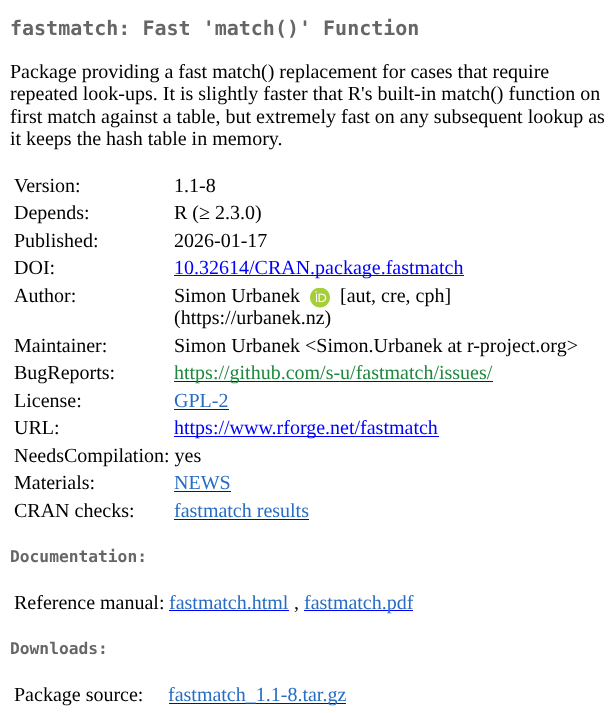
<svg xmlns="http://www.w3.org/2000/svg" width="616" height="713">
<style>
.a{font:bold 20px DejaVu Sans Mono;fill:#666}
.b{font:20px Liberation Serif;fill:#000}
.c{font:20px Liberation Serif;fill:#00f}
.d{font:20px Liberation Serif;fill:#1f883d}
.e{font:20px Liberation Serif;fill:#276dc3}
.f{font:bold 16.25px DejaVu Sans Mono;fill:#666}
</style>
<rect width="100%" height="100%" fill="#fff"/>
<path fill="#00f" d="M174 275h290v1H174z"/>
<image href="1.png" x="310" y="288" width="20" height="20"/>
<path fill="#00f" d="M174 381h319v1H174z"/>
<path fill="#00f" d="M174 409h55v1H174z"/>
<path fill="#00f" d="M174 436h265v1H174z"/>
<path fill="#00f" d="M174 491h57v1H174z"/>
<path fill="#00f" d="M174 519h135v1H174z"/>
<path fill="#00f" d="M169 610h120v1H169z"/>
<path fill="#00f" d="M304 610h109v1H304z"/>
<path fill="#00f" d="M169 703h177v1H169z"/>
<text class="a" x="10" y="35">fastmatch: Fast 'match()' Function</text>
<text class="b" x="10" y="78">Package providing a fast match() replacement for cases that require</text>
<text class="b" x="10" y="100">repeated look-ups. It is slightly faster that R's built-in match() function on</text>
<text class="b" x="10" y="123">first match against a table, but extremely fast on any subsequent lookup as</text>
<text class="b" x="10" y="145">it keeps the hash table in memory.</text>
<text class="b" x="14" y="192">Version:</text>
<text class="b" x="174" y="192">1.1-8</text>
<text class="b" x="14" y="219">Depends:</text>
<text class="b" x="174" y="219">R (≥ 2.3.0)</text>
<text class="b" x="14" y="247">Published:</text>
<text class="b" x="174" y="247">2026-01-17</text>
<text class="b" x="14" y="274">DOI:</text>
<text class="c" x="174" y="274">10.32614/CRAN.package.fastmatch</text>
<text class="b" x="14" y="302">Author:</text>
<text class="b" x="174" y="302">Simon Urbanek</text>
<text class="b" x="340" y="302">[aut, cre, cph]</text>
<text class="b" x="174" y="324">(https://urbanek.nz)</text>
<text class="b" x="14" y="352">Maintainer:</text>
<text class="b" x="174" y="352">Simon Urbanek &lt;Simon.Urbanek at r-project.org&gt;</text>
<text class="b" x="14" y="379">BugReports:</text>
<text class="d" x="174" y="379">https://github.com/s-u/fastmatch/issues/</text>
<text class="b" x="14" y="407">License:</text>
<text class="e" x="174" y="407">GPL-2</text>
<text class="b" x="14" y="434">URL:</text>
<text class="c" x="174" y="434">https://www.rforge.net/fastmatch</text>
<text class="b" x="14" y="462">NeedsCompilation: yes</text>
<text class="b" x="14" y="489">Materials:</text>
<text class="e" x="174" y="489">NEWS</text>
<text class="b" x="14" y="517">CRAN checks:</text>
<text class="e" x="174" y="517">fastmatch results</text>
<text class="f" x="10" y="562">Documentation:</text>
<text class="b" x="14" y="609">Reference manual:</text>
<text class="e" x="169" y="609">fastmatch.html</text>
<text class="b" x="294" y="609">,</text>
<text class="e" x="304" y="609">fastmatch.pdf</text>
<text class="f" x="10" y="654">Downloads:</text>
<text class="b" x="14" y="701">Package source:</text>
<text class="e" x="168" y="701">fastmatch_1.1-8.tar.gz</text>
</svg>
